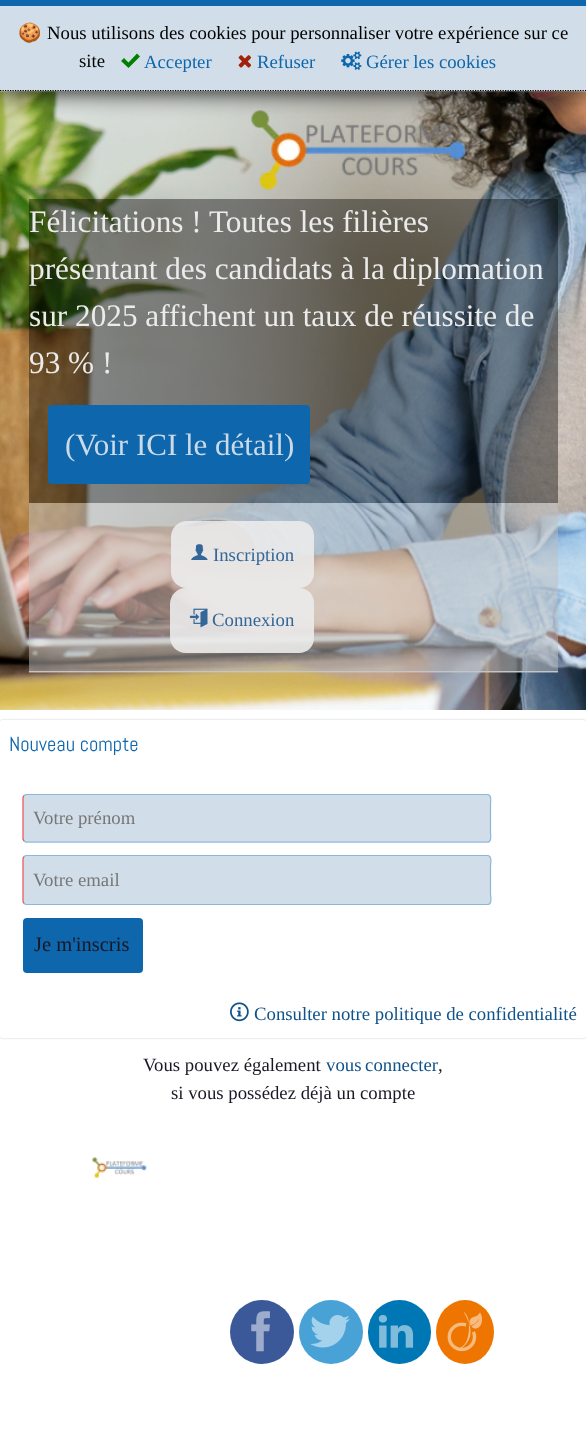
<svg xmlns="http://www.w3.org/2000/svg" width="586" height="1442">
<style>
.a{font:18.75px Noto Color Emoji;fill:#000}
.b{font:18.75px Liberation Serif;fill:#000}
.c{font:18.75px Liberation Serif;fill:#0e66ad}
.d{font:31.25px Liberation Serif;fill:#ebebeb}
.e{font:31px Liberation Serif;fill:#cbdae6}
.f{font:18.75px Liberation Serif;fill:#369}
.g{font:20.5px Abel;fill:#0e66ad}
.h{font:18.75px Liberation Serif;fill:#777}
.i{font:20.5px Liberation Serif;fill:#1b1826}
.j{font:18.75px Liberation Serif;fill:#10528a}
.k{font:18.75px Liberation Serif;fill:#1b1826}
</style>
<defs>
<clipPath id="clip1"><path d="M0 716h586v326h-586zm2.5 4h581c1.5 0 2.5 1 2.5 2.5v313c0 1.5-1 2.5-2.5 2.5h-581c-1.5 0-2.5-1-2.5-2.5v-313c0-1.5 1-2.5 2.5-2.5z" clip-rule="evenodd"/></clipPath>
</defs>
<rect width="100%" height="100%" fill="#fff"/>
<image href="3.png" x="0" y="91" width="586" height="619"/>
<image href="4.png" x="251" y="110" width="216" height="81"/>
<path fill="#000" filter="blur(12.5px)" d="M0 0h586v91H0z"/>
<path fill="#d1dee9" d="M0 6h586v85H0z"/>
<path fill="#0e66ac" d="M0 0h586v6H0z"/>
<path fill="none" stroke="#000" stroke-width="1.2" stroke-dasharray="1.25 1.25" d="M0 90.5h586"/>
<path fill="#008000" d="M137 53.5l-8.5 9l-4.5-4.5l-3 3l7.5 7l11.5-11.5z"/>
<image href="1.png" x="238" y="55" width="14" height="13"/>
<image href="2.png" x="341" y="51" width="21" height="19"/>
<path fill="#00000066" d="M29 199h529v304H29z"/>
<rect fill="#0e66ac" x="48" y="405" width="262" height="79" rx="4"/>
<path fill="#c0c0c080" d="M29 503h529v170H29z"/>
<path fill="#c5c5c5" d="M29 671h529v1H29z"/>
<path fill="#ebebebe6" d="M187 521h112c8.5 0 15 6.5 15 15v37c0 8.5-6.5 15-15 15h-112c-9 0-16-7-16-16v-35c0-9 7-16 16-16z"/>
<image href="5.png" x="191" y="544" width="17" height="16"/>
<path fill="#ebebebe6" d="M186 588h113c8.5 0 15 6.5 15 15v35c0 8.5-6.5 15-15 15h-113c-9 0-16-7-16-16v-33c0-9 7-16 16-16z"/>
<image href="6.png" x="189" y="608" width="19" height="20"/>
<g clip-path="url(#clip1)">
<rect fill="#00000033" filter="blur(1px)" y="720" width="586" height="318" rx="2.5"/>
</g>
<rect fill="#d1dee9" x="23" y="794" width="468" height="49" rx="4"/>
<path fill="none" stroke="#8bb8da" stroke-width="1.2" d="M24 795.5l2-1h461.5c4.5 0 3 8 3 10v27.5c0 2 1.5 10-3 10h-461.5l-2-1"/>
<path fill="none" stroke="#e55151" stroke-width="1.2" d="M24 841l-1-2v-41.5l1-2"/>
<rect fill="#d1dee9" x="23" y="855" width="468" height="50" rx="4"/>
<path fill="none" stroke="#8bb8da" stroke-width="1.2" d="M24 856.5l2-1h461.5c5 0 3 8.5 3 10.5v28c0 2 2 10-2.5 10.5h-462l-2-1"/>
<path fill="none" stroke="#e55151" stroke-width="1.2" d="M24 903.5l-1-2v-43l1-2"/>
<rect fill="#0e66ac" x="23" y="918" width="120" height="55" rx="4"/>
<image href="7.png" x="230" y="1002" width="19" height="20"/>
<image href="8.png" x="92" y="1157" width="55" height="22"/>
<circle fill="#3b5998" cx="262" cy="1332" r="32"/>
<image href="9.png" x="251" y="1311" width="19" height="41"/>
<circle fill="#49a2d6" cx="331" cy="1332" r="32"/>
<image href="10.png" x="310" y="1315" width="40" height="33"/>
<rect fill="#0077b5" x="368" y="1300" width="63" height="64" rx="31.5"/>
<image href="11.png" x="378" y="1315" width="36" height="33"/>
<ellipse fill="#ee7600" cx="465" cy="1332" rx="29" ry="32"/>
<image href="12.png" x="447" y="1311" width="35" height="41"/>
<text class="a" x="18" y="39">🍪</text>
<text class="b" x="47" y="39">Nous utilisons des cookies pour personnaliser votre expérience sur ce</text>
<text class="b" x="79" y="67">site</text>
<text class="c" x="144" y="68">Accepter</text>
<text class="c" x="257" y="68">Refuser</text>
<text class="c" x="366" y="68">Gérer les cookies</text>
<text class="d" x="29" y="232">Félicitations ! Toutes les filières</text>
<text class="d" x="29" y="279">présentant des candidats à la diplomation</text>
<text class="d" x="29" y="326">sur 2025 affichent un taux de réussite de</text>
<text class="d" x="29" y="373">93 % !</text>
<text class="e" x="65" y="455">(Voir ICI le détail)</text>
<text class="f" x="213" y="561">Inscription</text>
<text class="f" x="212" y="626">Connexion</text>
<text class="g" x="9" y="751">Nouveau compte</text>
<text class="h" x="33" y="824">Votre prénom</text>
<text class="h" x="33" y="886">Votre email</text>
<text class="i" x="34" y="951">Je m'inscris</text>
<text class="j" x="254" y="1020">Consulter notre politique de confidentialité</text>
<text class="k" x="143" y="1071">Vous pouvez également</text>
<text class="j" x="326" y="1071" word-spacing="-1">vous connecter</text>
<text class="k" x="438" y="1071">,</text>
<text class="k" x="171" y="1099">si vous possédez déjà un compte</text>
</svg>
